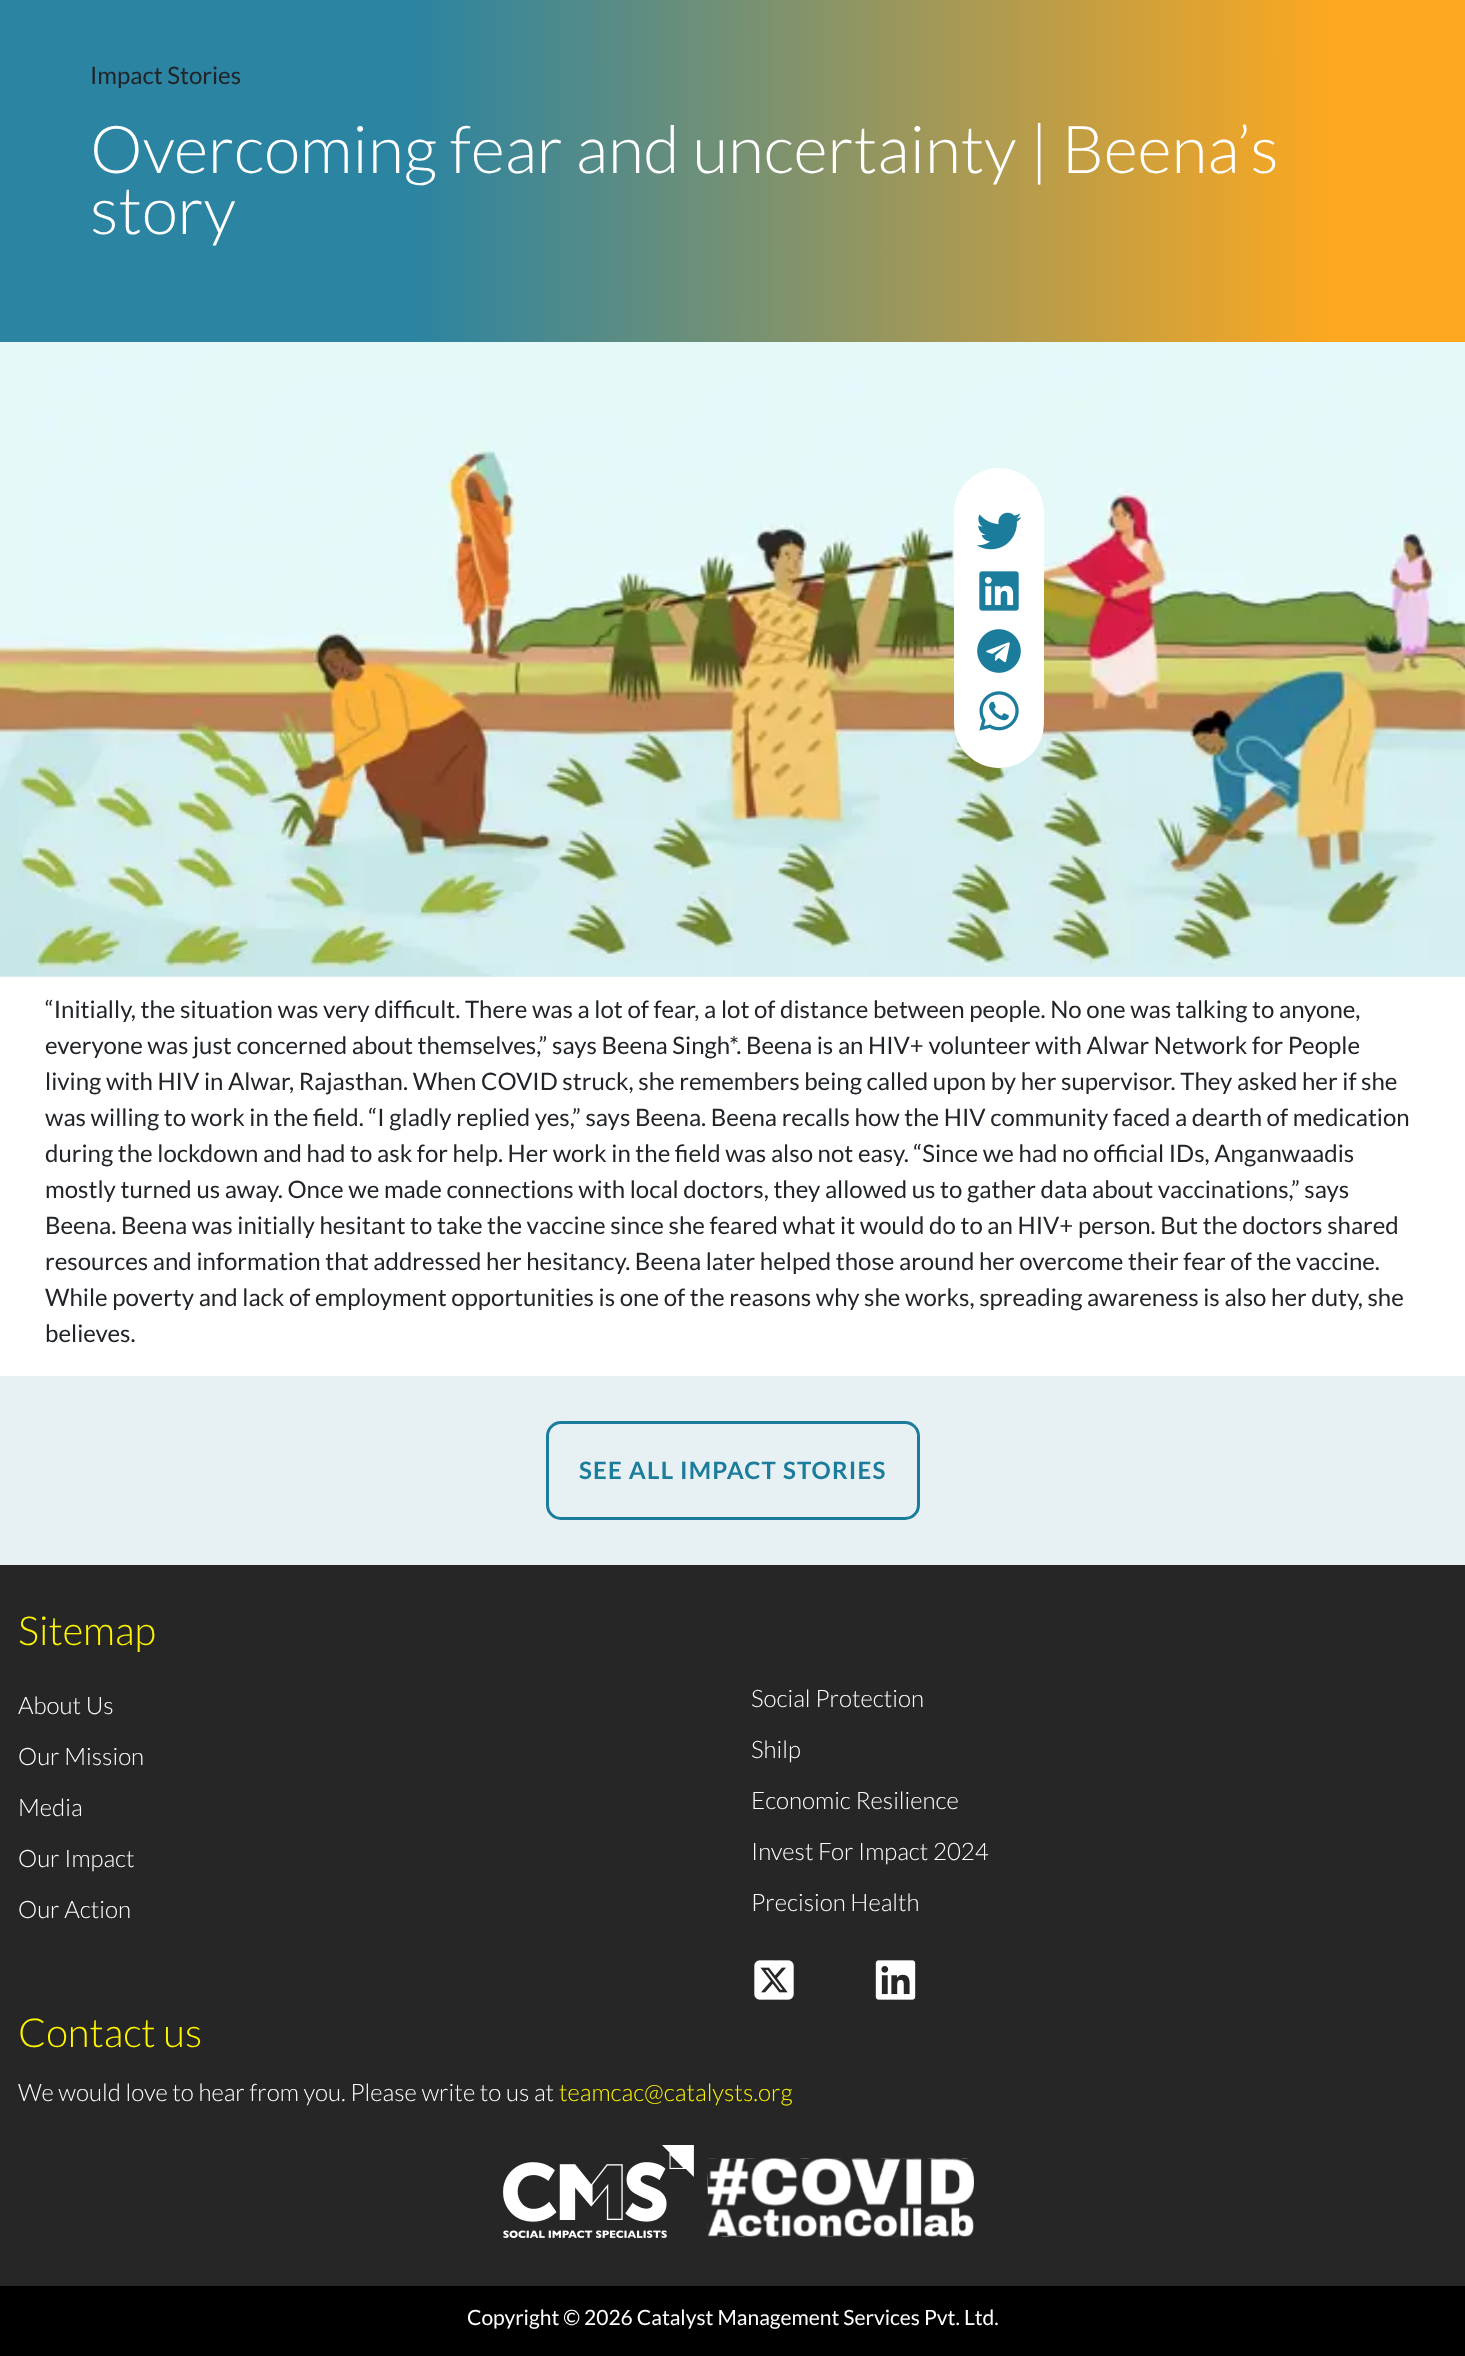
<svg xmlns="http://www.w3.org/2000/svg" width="1465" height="2356">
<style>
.a{font:24px Lato;fill:#212529}
.b{font:300 66px Lato;fill:#fff}
.c{font:bold 24px Lato;letter-spacing:1.2px;fill:#1c7c9c}
.d{font:300 40px Lato;fill:#fff500}
.e{font:300 24px Lato;fill:#fff}
.f{font:300 24px Lato;fill:#fff500}
.g{font:21px Lato;fill:#fff}
</style>
<defs>
<linearGradient id="g1" gradientUnits="userSpaceOnUse" x1="0" y1="155" x2="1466" y2="154"><stop offset="0.28" stop-color="#2a84a2"/><stop offset="0.91" stop-color="#fda81f"/></linearGradient>
</defs>
<rect width="100%" height="100%" fill="#fff"/>
<path fill="url(#g1)" d="M0 0h1465v342H0z"/>
<path fill="#e7f1f4" d="M0 976h1465v589H0z"/>
<image href="1.png" x="0" y="342" width="1465" height="635"/>
<rect fill="#fff" x="954" y="468" width="90" height="300" rx="45"/>
<image href="2.png" x="977" y="512" width="45" height="38"/>
<image href="3.png" x="979" y="571" width="40" height="40"/>
<image href="4.png" x="977" y="629" width="44" height="44"/>
<image href="5.png" x="979" y="691" width="40" height="40"/>
<path fill="#fff" d="M0 977h1465v399H0z"/>
<rect fill="none" stroke="#1c7c9c" stroke-width="3" x="547.5" y="1422.5" width="371" height="96" rx="13.5"/>
<path fill="#262626" d="M0 1565h1465v721H0z"/>
<image href="6.png" x="754" y="1960" width="40" height="40"/>
<image href="7.png" x="875" y="1960" width="41" height="40"/>
<image href="8.png" x="503" y="2145" width="191" height="93"/>
<image href="9.png" x="707" y="2158" width="267" height="79"/>
<path fill="#000" d="M0 2286h1465v70H0z"/>
<text class="a" x="90" y="84">Impact Stories</text>
<text class="b" x="90" y="173">Overcoming fear and uncertainty | Beena’s</text>
<text class="b" x="90" y="234">story</text>
<text class="a" x="45" y="1018">“Initially, the situation was very difficult. There was a lot of fear, a lot of distance between people. No one was talking to anyone,</text>
<text class="a" x="45" y="1054">everyone was just concerned about themselves,” says Beena Singh*. Beena is an HIV+ volunteer with Alwar Network for People</text>
<text class="a" x="45" y="1090">living with HIV in Alwar, Rajasthan. When COVID struck, she remembers being called upon by her supervisor. They asked her if she</text>
<text class="a" x="45" y="1126">was willing to work in the field. “I gladly replied yes,” says Beena. Beena recalls how the HIV community faced a dearth of medication</text>
<text class="a" x="45" y="1162">during the lockdown and had to ask for help. Her work in the field was also not easy. “Since we had no official IDs, Anganwaadis</text>
<text class="a" x="45" y="1198">mostly turned us away. Once we made connections with local doctors, they allowed us to gather data about vaccinations,” says</text>
<text class="a" x="45" y="1234">Beena. Beena was initially hesitant to take the vaccine since she feared what it would do to an HIV+ person. But the doctors shared</text>
<text class="a" x="45" y="1270">resources and information that addressed her hesitancy. Beena later helped those around her overcome their fear of the vaccine.</text>
<text class="a" x="45" y="1306">While poverty and lack of employment opportunities is one of the reasons why she works, spreading awareness is also her duty, she</text>
<text class="a" x="45" y="1342">believes.</text>
<text class="c" x="579" y="1479">SEE ALL IMPACT STORIES</text>
<text class="d" x="18" y="1645">Sitemap</text>
<text class="e" x="18" y="1714">About Us</text>
<text class="e" x="18" y="1765">Our Mission</text>
<text class="e" x="18" y="1816">Media</text>
<text class="e" x="18" y="1867">Our Impact</text>
<text class="e" x="18" y="1918">Our Action</text>
<text class="e" x="751" y="1707">Social Protection</text>
<text class="e" x="751" y="1758">Shilp</text>
<text class="e" x="751" y="1809">Economic Resilience</text>
<text class="e" x="751" y="1860">Invest For Impact 2024</text>
<text class="e" x="751" y="1911">Precision Health</text>
<text class="d" x="18" y="2047">Contact us</text>
<text class="e" x="18" y="2101">We would love to hear from you. Please write to us at</text>
<text class="f" x="559" y="2101">teamcac@catalysts.org</text>
<text class="g" x="467" y="2325">Copyright © 2026 Catalyst Management Services Pvt. Ltd.</text>
</svg>
